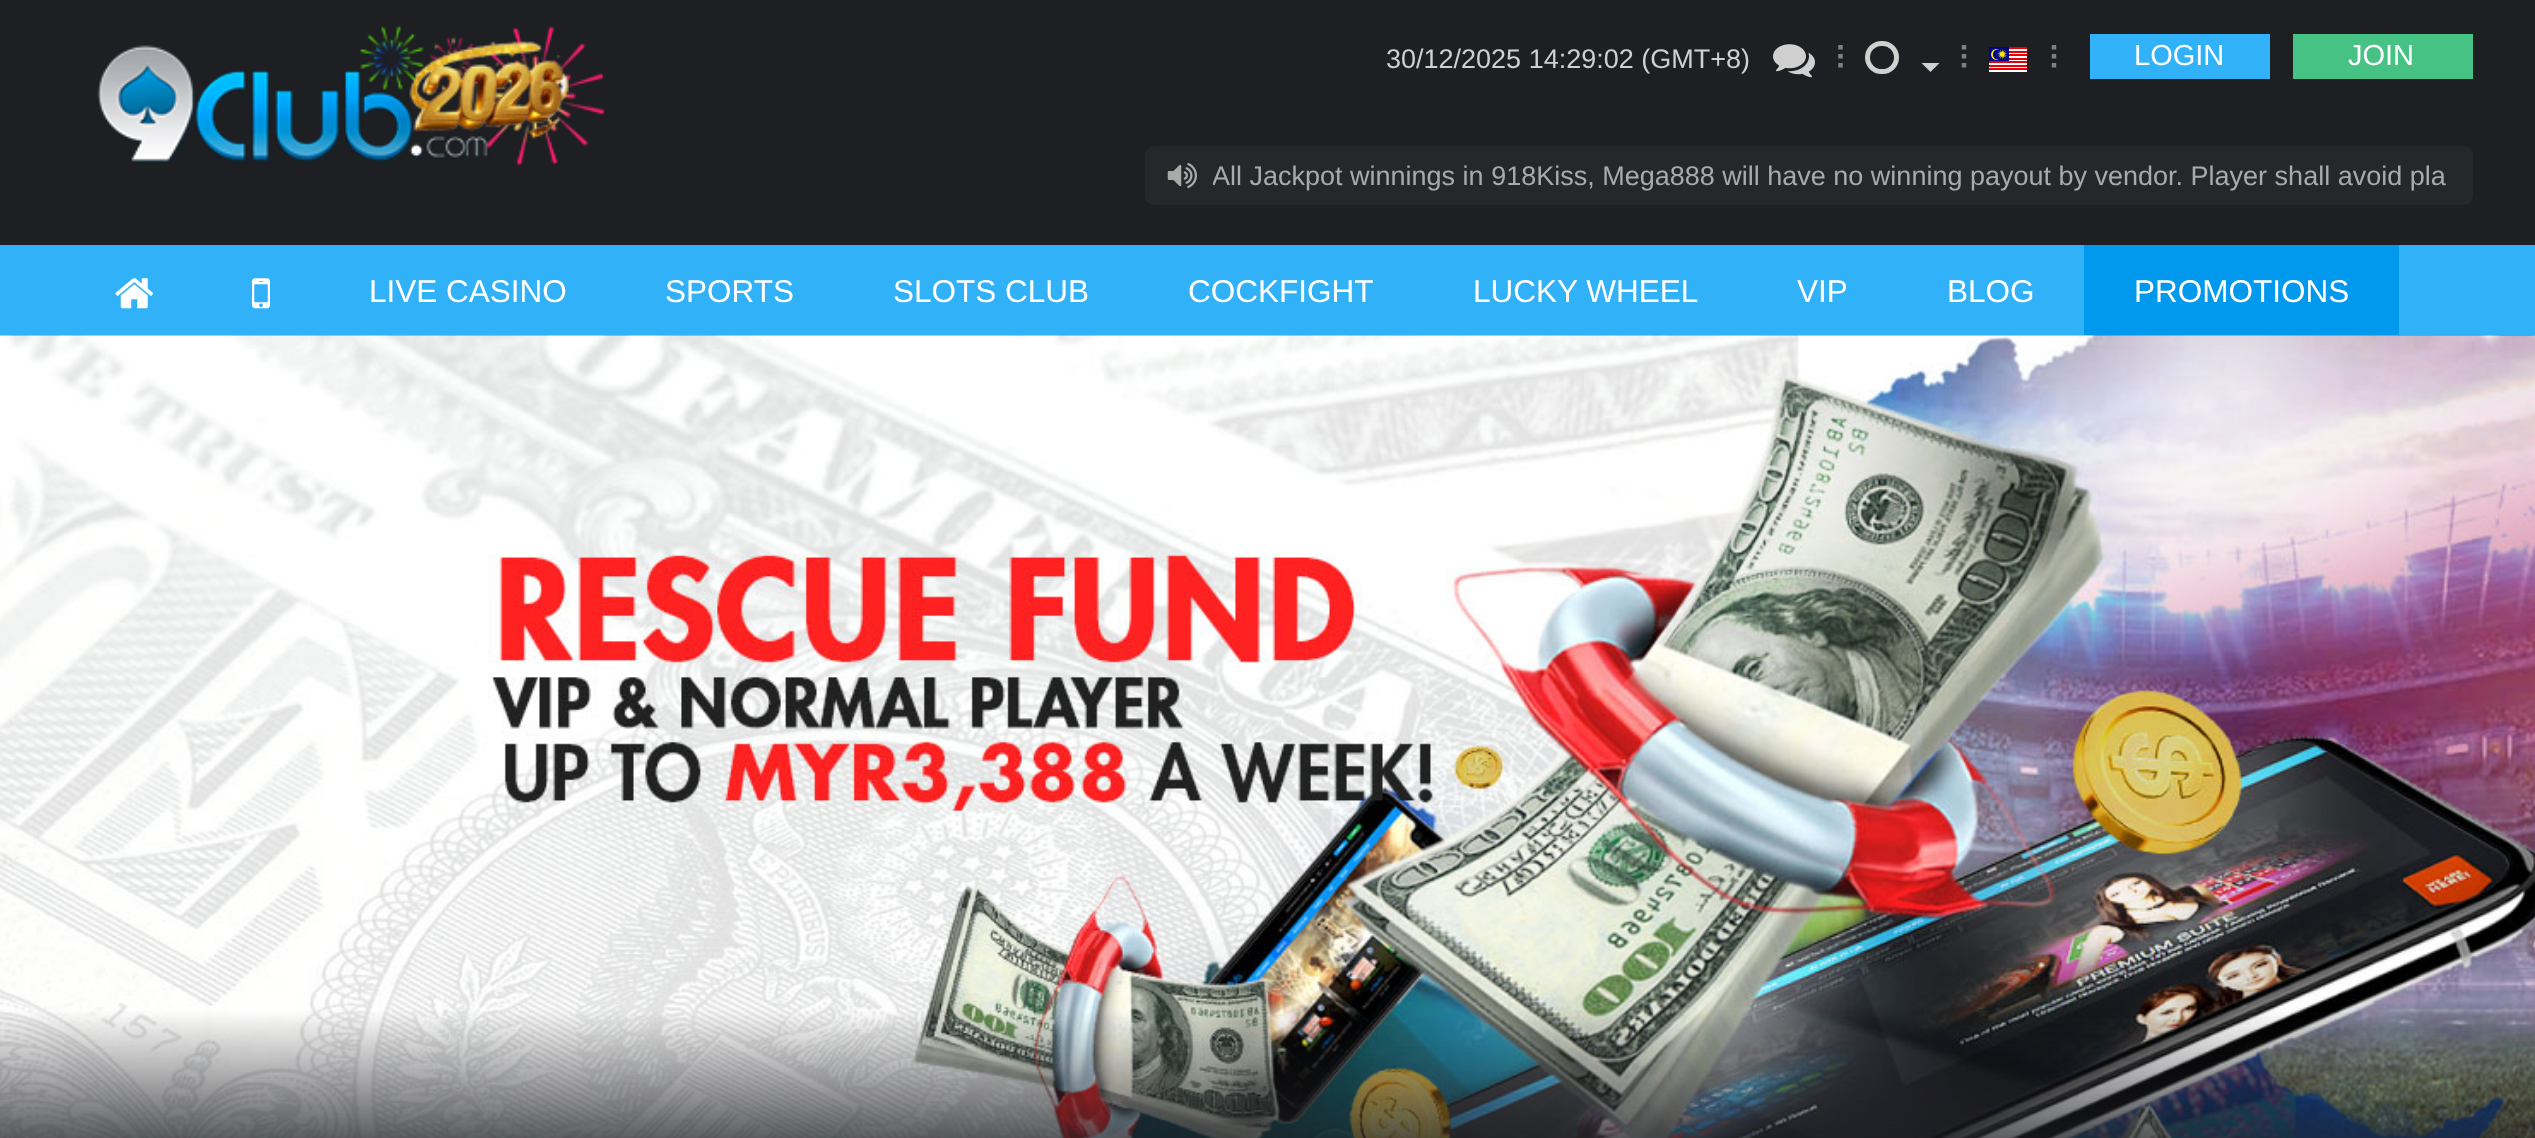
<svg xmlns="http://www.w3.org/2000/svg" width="2535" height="1138">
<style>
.a{font:27px Liberation Sans;fill:#d0d0d0}
.b{font:29px Liberation Sans;fill:#fff}
.c{font:27px Liberation Sans;fill:#aaa}
.d{font:31.5px Liberation Sans;fill:#fff}
</style>
<defs>
<clipPath id="clip1"><path d="M1213 153h1237v45H1213z"/></clipPath>
</defs>
<rect width="100%" height="100%" fill="#1e1f23"/>
<image href="1.png" x="97" y="26" width="508" height="140"/>
<image href="2.png" x="1773" y="44" width="42" height="34"/>
<path fill="none" stroke="#808080" stroke-width="4.5" d="M1840.5 45v4.5m0 4.5v4.5m0 4.5v4.5"/>
<rect fill="none" stroke="#d0d0d0" stroke-width="5" x="1867.5" y="43.5" width="29" height="28" rx="14"/>
<path fill="#d0d0d0" d="M1921.5 63h18l-9 9z"/>
<path fill="none" stroke="#808080" stroke-width="4.5" d="M1964 45v4.5m0 4.5v4.5m0 4.5v4.5"/>
<image href="3.png" x="1989" y="47" width="38" height="25"/>
<path fill="none" stroke="#808080" stroke-width="4.5" d="M2054 45v4.5m0 4.5v4.5m0 4.5v4.5"/>
<path fill="#31b1f8" d="M2090 34h180v45H2090z"/>
<path fill="#47c285" d="M2293 34h180v45H2293z"/>
<rect fill="#26272b" x="1145" y="146" width="1328" height="59" rx="9"/>
<image href="4.png" x="1167" y="163" width="30" height="25"/>
<path fill="#31b1f8" d="M0 245h2535v90H0z"/>
<image href="5.png" x="115" y="278" width="39" height="31"/>
<image href="6.png" x="252" y="278" width="18" height="31"/>
<path fill="#0199ed" d="M2084 245h315v90H2084z"/>
<image href="7.png" x="0" y="335" width="2535" height="803"/>
<text class="a" x="1386" y="68">30/12/2025 14:29:02 (GMT+8)</text>
<text class="b" x="2134" y="65">LOGIN</text>
<text class="b" x="2348" y="65">JOIN</text>
<g clip-path="url(#clip1)">
<text class="c" x="1212" y="185">All Jackpot winnings in 918Kiss, Mega888 will have no winning payout by vendor. Player shall avoid pla</text>
</g>
<text class="d" x="369" y="302">LIVE CASINO</text>
<text class="d" x="665" y="302">SPORTS</text>
<text class="d" x="893" y="302">SLOTS CLUB</text>
<text class="d" x="1188" y="302">COCKFIGHT</text>
<text class="d" x="1473" y="302">LUCKY WHEEL</text>
<text class="d" x="1797" y="302">VIP</text>
<text class="d" x="1947" y="302">BLOG</text>
<text class="d" x="2134" y="302">PROMOTIONS</text>
</svg>
